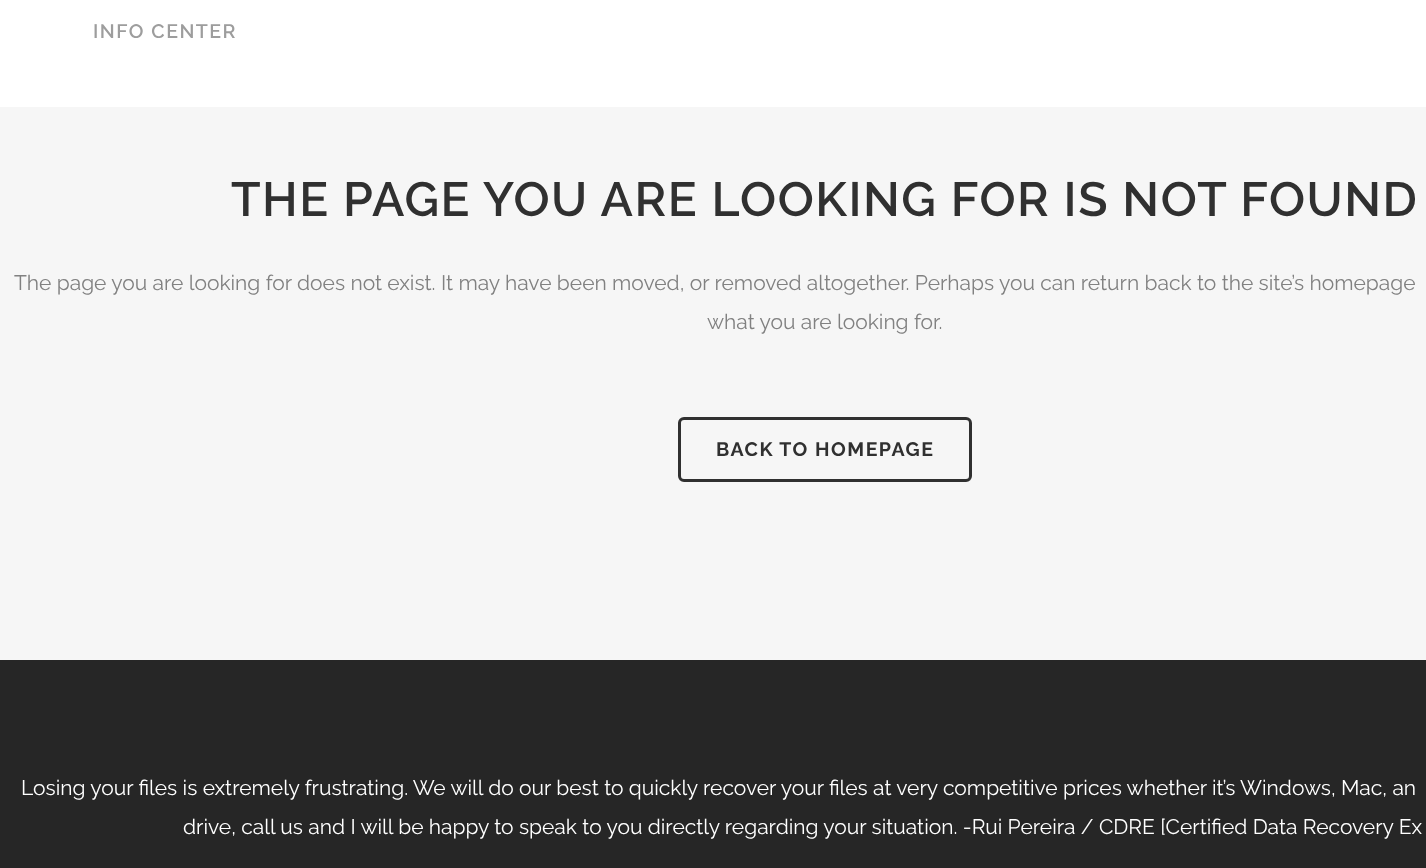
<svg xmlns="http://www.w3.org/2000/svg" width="1426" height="868">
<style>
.a{font:600 19.5px Raleway;letter-spacing:1.5px;fill:#9d9d9d}
.b{font:600 48px Raleway;letter-spacing:1.5px;fill:#303030}
.c{font:21px Raleway;fill:#818181}
.d{font:bold 19.5px Raleway;letter-spacing:1.5px;fill:#303030}
.e{font:21px Raleway;fill:#fff}
</style>
<rect width="100%" height="100%" fill="#f6f6f6"/>
<path fill="#fff" d="M0 0h1426v107H0z"/>
<rect fill="none" stroke="#303030" stroke-width="3" x="679.5" y="418.5" width="291" height="62" rx="4.5"/>
<path fill="#262626" d="M0 660h1426v208H0z"/>
<text class="a" x="93" y="38">INFO CENTER</text>
<text class="b" x="231" y="216">THE PAGE YOU ARE LOOKING FOR IS NOT FOUND</text>
<text class="c" x="14" y="290">The page you are looking for does not exist. It may have been moved, or removed altogether. Perhaps you can return back to the site’s homepage</text>
<text class="c" x="707" y="329">what you are looking for.</text>
<text class="d" x="716" y="456">BACK TO HOMEPAGE</text>
<text class="e" x="21" y="795">Losing your files is extremely frustrating. We will do our best to quickly recover your files at very competitive prices whether it’s Windows, Mac, an</text>
<text class="e" x="183" y="834">drive, call us and I will be happy to speak to you directly regarding your situation. -Rui Pereira / CDRE [Certified Data Recovery Ex</text>
</svg>
